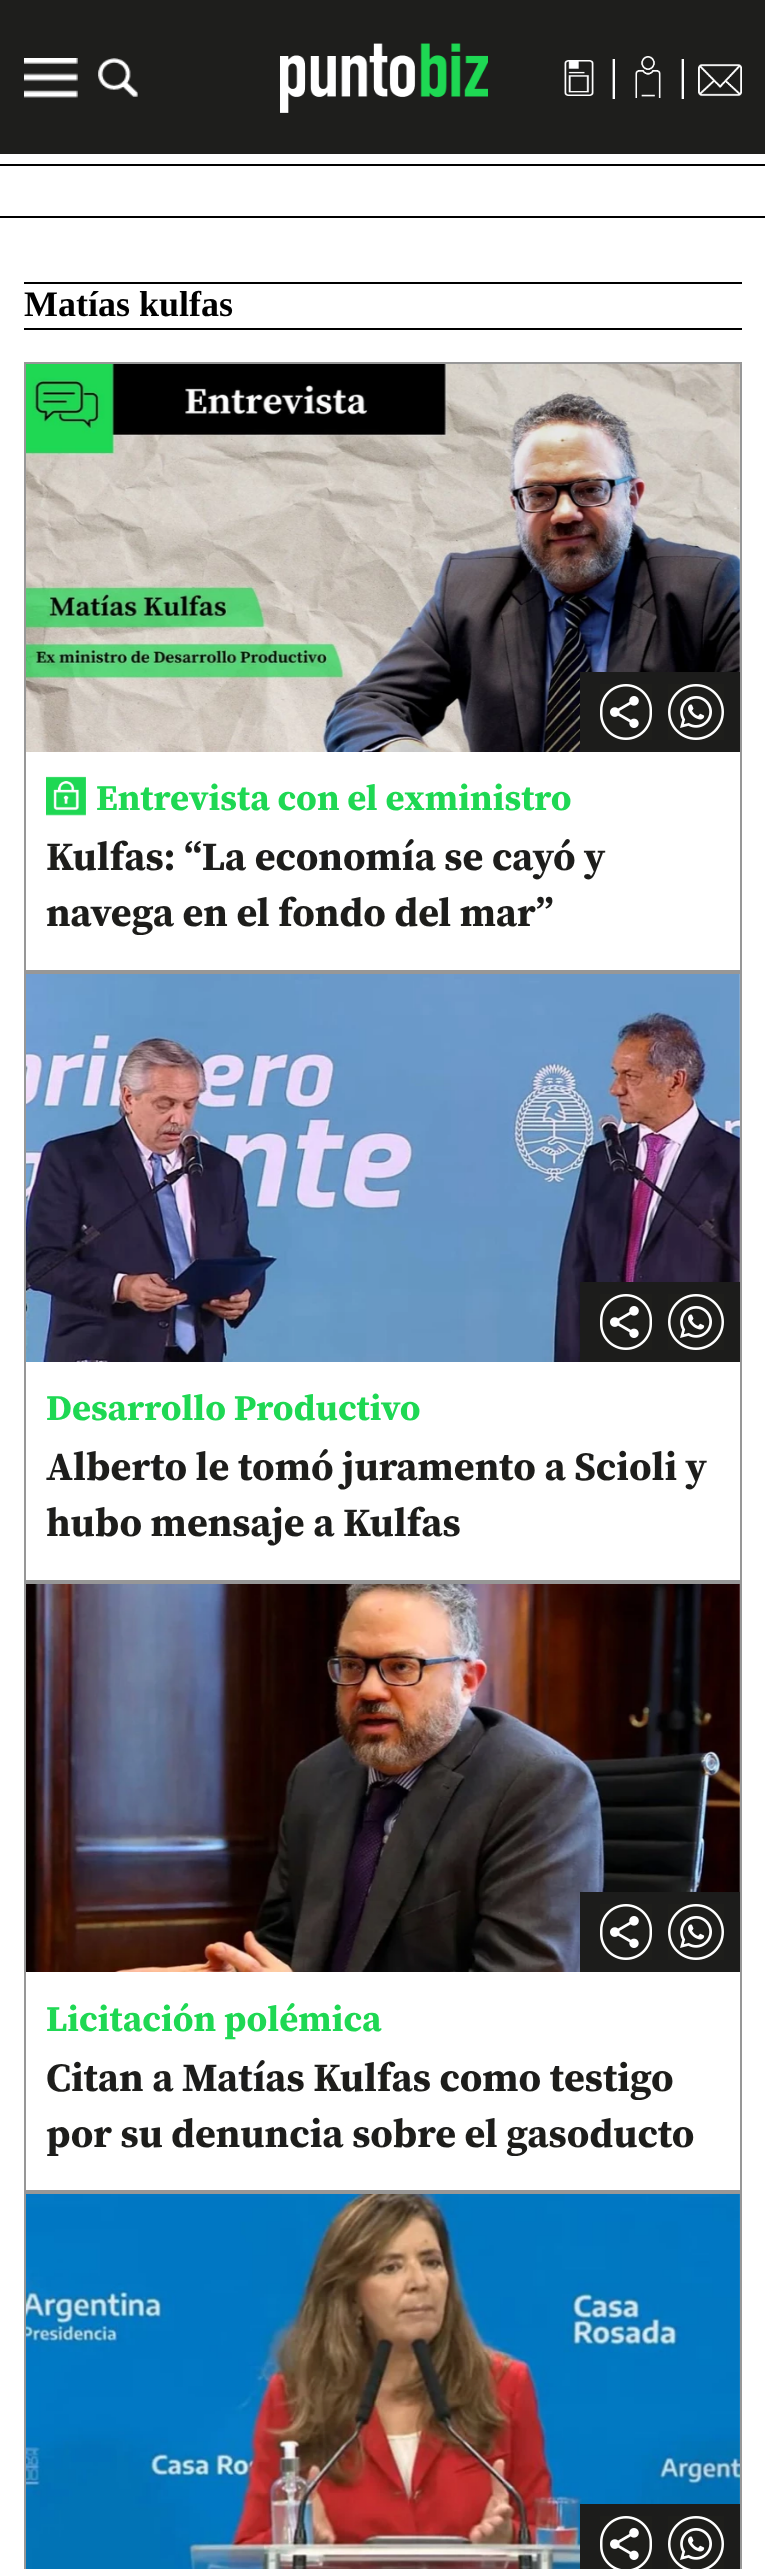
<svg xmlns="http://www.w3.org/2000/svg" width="765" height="2569">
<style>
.a{font:40px Source Sans Pro;fill:#fff}
.b{font:bold 36px Liberation Serif;fill:#000}
.c{font:bold 36px 'Source Serif 4';fill:#1ed853}
.d{font:bold 40px 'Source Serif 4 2';fill:#1d1d1b}
</style>
<rect width="100%" height="100%" fill="#fff"/>
<path fill="#1e1e1c" d="M0 0h765v154H0z"/>
<image href="1.png" x="24" y="58" width="54" height="40"/>
<image href="2.png" x="98" y="58" width="40" height="39"/>
<image href="3.png" x="280" y="43" width="208" height="70"/>
<image href="4.png" x="564" y="60" width="30" height="36"/>
<image href="5.png" x="635" y="56" width="26" height="42"/>
<image href="6.png" x="698" y="64" width="44" height="33"/>
<path fill="#000" d="M0 164h765v2H0z"/>
<path fill="#000" d="M0 216h765v2H0z"/>
<path fill="#000" d="M24 282h718v2H24z"/>
<path fill="#000" d="M24 328h718v2H24z"/>
<path fill="none" stroke="#979797" stroke-width="2" d="M25 363h716v608H25z"/>
<image href="7.png" x="26" y="364" width="714" height="388"/>
<path fill="#1c1c1b" d="M580 672h160v80H580z"/>
<image href="8.png" x="600" y="684" width="52" height="56"/>
<image href="9.png" x="668" y="684" width="56" height="56"/>
<image href="10.png" x="46" y="776" width="40" height="40"/>
<path fill="none" stroke="#979797" stroke-width="2" d="M25 973h716v608H25z"/>
<image href="11.png" x="26" y="974" width="714" height="388"/>
<path fill="#1c1c1b" d="M580 1282h160v80H580z"/>
<image href="8.png" x="600" y="1294" width="52" height="56"/>
<image href="9.png" x="668" y="1294" width="56" height="56"/>
<path fill="none" stroke="#979797" stroke-width="2" d="M25 1583h716v608H25z"/>
<image href="12.png" x="26" y="1584" width="714" height="388"/>
<path fill="#1c1c1b" d="M580 1892h160v80H580z"/>
<image href="8.png" x="600" y="1904" width="52" height="56"/>
<image href="9.png" x="668" y="1904" width="56" height="56"/>
<path fill="none" stroke="#979797" stroke-width="2" d="M25 2193h716v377H25z"/>
<image href="13.png" x="26" y="2194" width="714" height="375"/>
<path fill="#1c1c1b" d="M580 2504h160v65H580z"/>
<image href="14.png" x="600" y="2516" width="52" height="53"/>
<image href="15.png" x="668" y="2516" width="56" height="53"/>
<text class="a" x="609" y="89">|</text>
<text class="a" x="678" y="89">|</text>
<text class="b" x="24" y="316">Matías kulfas</text>
<text class="c" x="96" y="810">Entrevista con el exministro</text>
<text class="d" x="46" y="870">Kulfas: “La economía se cayó y</text>
<text class="d" x="46" y="926">navega en el fondo del mar”</text>
<text class="c" x="46" y="1420">Desarrollo Productivo</text>
<text class="d" x="46" y="1480">Alberto le tomó juramento a Scioli y</text>
<text class="d" x="46" y="1536">hubo mensaje a Kulfas</text>
<text class="c" x="46" y="2031">Licitación polémica</text>
<text class="d" x="46" y="2091">Citan a Matías Kulfas como testigo</text>
<text class="d" x="46" y="2147">por su denuncia sobre el gasoducto</text>
</svg>
